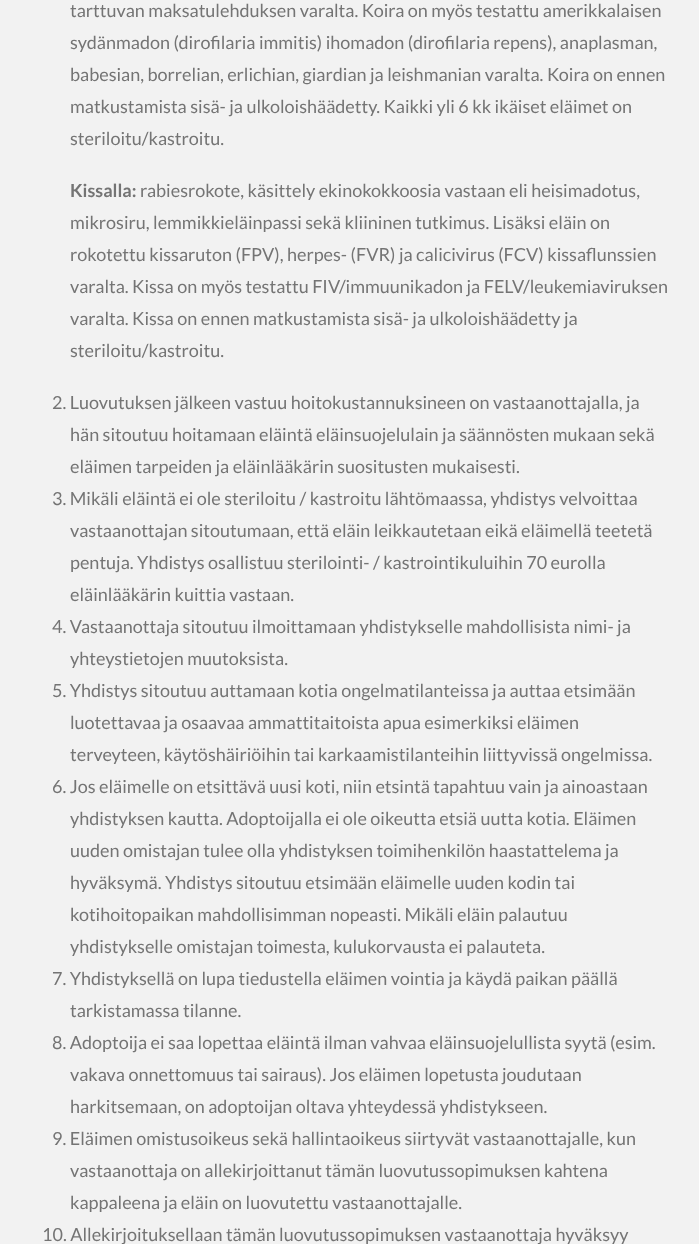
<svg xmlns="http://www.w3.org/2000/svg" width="699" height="1244">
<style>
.a{font:18px Lato;fill:#747474}
.b{font:bold 18px Lato;fill:#747474}
</style>
<rect width="100%" height="100%" fill="#f2f2f2"/>
<text class="a" x="70" y="17">tarttuvan maksatulehduksen varalta. Koira on myös testattu amerikkalaisen</text>
<text class="a" x="70" y="49">sydänmadon (dirofilaria immitis) ihomadon (dirofilaria repens), anaplasman,</text>
<text class="a" x="70" y="81">babesian, borrelian, erlichian, giardian ja leishmanian varalta. Koira on ennen</text>
<text class="a" x="70" y="113">matkustamista sisä- ja ulkoloishäädetty. Kaikki yli 6 kk ikäiset eläimet on</text>
<text class="a" x="70" y="145">steriloitu/kastroitu.</text>
<text class="b" x="70" y="197">Kissalla:</text>
<text class="a" x="140" y="197">rabiesrokote, käsittely ekinokokkoosia vastaan eli heisimadotus,</text>
<text class="a" x="70" y="229">mikrosiru, lemmikkieläinpassi sekä kliininen tutkimus. Lisäksi eläin on</text>
<text class="a" x="70" y="261">rokotettu kissaruton (FPV), herpes- (FVR) ja calicivirus (FCV) kissaflunssien</text>
<text class="a" x="70" y="293">varalta. Kissa on myös testattu FIV/immuunikadon ja FELV/leukemiaviruksen</text>
<text class="a" x="70" y="325">varalta. Kissa on ennen matkustamista sisä- ja ulkoloishäädetty ja</text>
<text class="a" x="70" y="357">steriloitu/kastroitu.</text>
<text class="a" x="52" y="409">2. Luovutuksen jälkeen vastuu hoitokustannuksineen on vastaanottajalla, ja</text>
<text class="a" x="70" y="441">hän sitoutuu hoitamaan eläintä eläinsuojelulain ja säännösten mukaan sekä</text>
<text class="a" x="70" y="473">eläimen tarpeiden ja eläinlääkärin suositusten mukaisesti.</text>
<text class="a" x="52" y="505">3. Mikäli eläintä ei ole steriloitu / kastroitu lähtömaassa, yhdistys velvoittaa</text>
<text class="a" x="70" y="537">vastaanottajan sitoutumaan, että eläin leikkautetaan eikä eläimellä teetetä</text>
<text class="a" x="70" y="569">pentuja. Yhdistys osallistuu sterilointi- / kastrointikuluihin 70 eurolla</text>
<text class="a" x="70" y="601">eläinlääkärin kuittia vastaan.</text>
<text class="a" x="52" y="633">4. Vastaanottaja sitoutuu ilmoittamaan yhdistykselle mahdollisista nimi- ja</text>
<text class="a" x="70" y="665">yhteystietojen muutoksista.</text>
<text class="a" x="52" y="697">5. Yhdistys sitoutuu auttamaan kotia ongelmatilanteissa ja auttaa etsimään</text>
<text class="a" x="70" y="729">luotettavaa ja osaavaa ammattitaitoista apua esimerkiksi eläimen</text>
<text class="a" x="70" y="761">terveyteen, käytöshäiriöihin tai karkaamistilanteihin liittyvissä ongelmissa.</text>
<text class="a" x="52" y="793">6. Jos eläimelle on etsittävä uusi koti, niin etsintä tapahtuu vain ja ainoastaan</text>
<text class="a" x="70" y="825">yhdistyksen kautta. Adoptoijalla ei ole oikeutta etsiä uutta kotia. Eläimen</text>
<text class="a" x="70" y="857">uuden omistajan tulee olla yhdistyksen toimihenkilön haastattelema ja</text>
<text class="a" x="70" y="889">hyväksymä. Yhdistys sitoutuu etsimään eläimelle uuden kodin tai</text>
<text class="a" x="70" y="921">kotihoitopaikan mahdollisimman nopeasti. Mikäli eläin palautuu</text>
<text class="a" x="70" y="953">yhdistykselle omistajan toimesta, kulukorvausta ei palauteta.</text>
<text class="a" x="52" y="985">7. Yhdistyksellä on lupa tiedustella eläimen vointia ja käydä paikan päällä</text>
<text class="a" x="70" y="1017">tarkistamassa tilanne.</text>
<text class="a" x="52" y="1049">8. Adoptoija ei saa lopettaa eläintä ilman vahvaa eläinsuojelullista syytä (esim.</text>
<text class="a" x="70" y="1081">vakava onnettomuus tai sairaus). Jos eläimen lopetusta joudutaan</text>
<text class="a" x="70" y="1113">harkitsemaan, on adoptoijan oltava yhteydessä yhdistykseen.</text>
<text class="a" x="52" y="1145">9. Eläimen omistusoikeus sekä hallintaoikeus siirtyvät vastaanottajalle, kun</text>
<text class="a" x="70" y="1177">vastaanottaja on allekirjoittanut tämän luovutussopimuksen kahtena</text>
<text class="a" x="70" y="1209">kappaleena ja eläin on luovutettu vastaanottajalle.</text>
<text class="a" x="42" y="1241">10. Allekirjoituksellaan tämän luovutussopimuksen vastaanottaja hyväksyy</text>
</svg>
